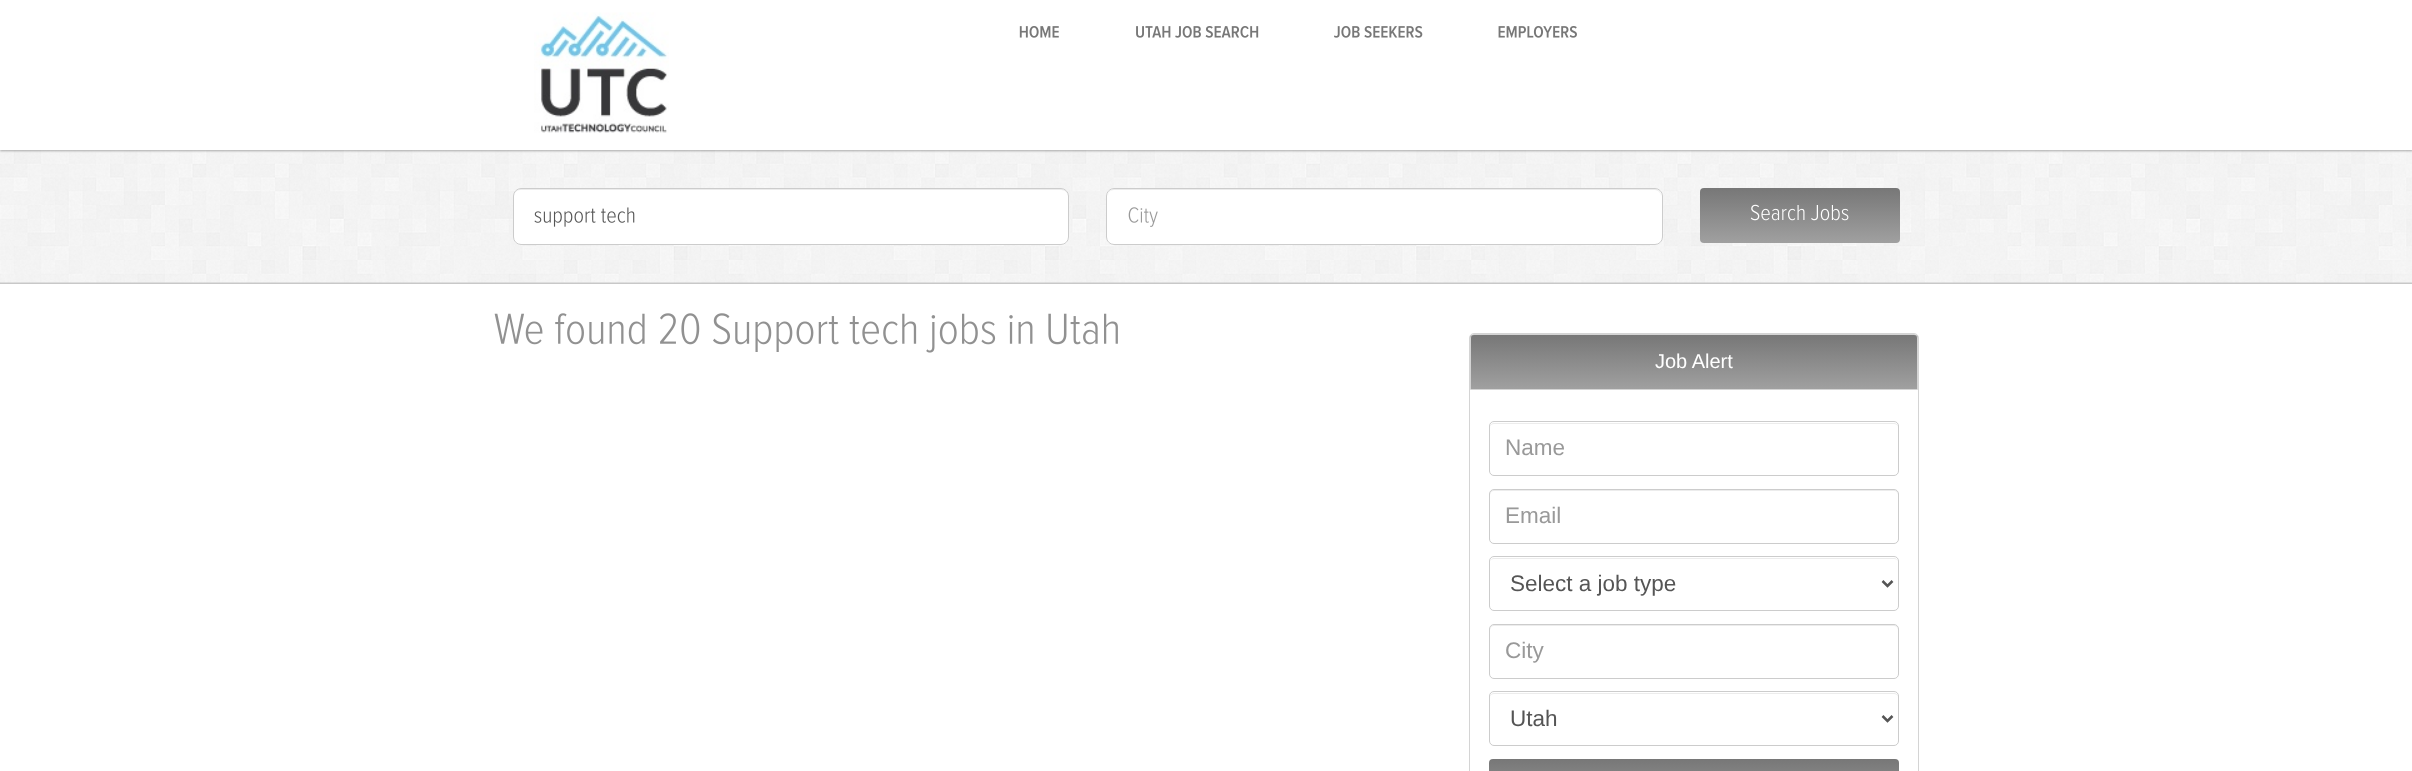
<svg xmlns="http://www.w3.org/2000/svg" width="2412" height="771">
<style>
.a{font:20px Liberation Sans;fill:#fff}
.b{font:22.5px Liberation Sans;fill:#999}
.c{font:22.5px Liberation Sans;fill:#555}
</style>
<defs>
<clipPath id="clip1"><path d="M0 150h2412v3H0z"/></clipPath>
<linearGradient id="g1" gradientUnits="userSpaceOnUse" x1="1800" y1="188" x2="1800" y2="243"><stop offset="0" stop-color="#777"/><stop offset="1" stop-color="#a0a0a0"/></linearGradient>
<clipPath id="clip2"><path d="M1474 334h440c2 0 4 2 4 4v52h-448v-52c0-2 2-4 4-4z"/></clipPath>
<linearGradient id="g2" gradientUnits="userSpaceOnUse" x1="1694" y1="335" x2="1694" y2="389"><stop offset="0" stop-color="#777"/><stop offset="1" stop-color="#a0a0a0"/></linearGradient>
<linearGradient id="g3" gradientUnits="userSpaceOnUse" x1="1694" y1="759" x2="1694" y2="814"><stop offset="0" stop-color="#777"/><stop offset="1" stop-color="#a0a0a0"/></linearGradient>
</defs>
<rect width="100%" height="100%" fill="#fff"/>
<path fill="#c8c8c8" filter="blur(0.5px)" d="M0 151h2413v133H0z"/>
<image href="6.png" x="0" y="150" width="2412" height="133"/>
<g clip-path="url(#clip1)">
<path fill="#a8a8a8" filter="blur(1px)" d="M0 1h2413v150H0z"/>
</g>
<image href="1.png" x="534" y="12" width="135" height="121"/>
<image href="2.png" x="1019" y="26" width="40" height="12"/>
<image href="3.png" x="1136" y="26" width="123" height="12"/>
<image href="4.png" x="1334" y="26" width="89" height="12"/>
<image href="5.png" x="1498" y="26" width="79" height="12"/>
<rect fill="#fff" x="513" y="188" width="556" height="57" rx="8"/>
<path fill="#ececec" d="M520 190h541c4 0 7 3 7 6v-1c0-3-3-6-6-6h-542c-3 0-6 3-6 6v1c0-3 3-6 6-6z"/>
<rect fill="none" stroke="#ccc" x="513.5" y="188.5" width="555" height="56" rx="7.5"/>
<image href="7.png" x="534" y="207" width="101" height="20"/>
<rect fill="#fff" x="1106" y="188" width="557" height="57" rx="8"/>
<path fill="#ececec" d="M1114 190h541c3 0 6 3 6 6v-1c0-3-3-6-6-6h-541c-3 0-6 3-6 6v1c0-3 2-6 6-6z"/>
<rect fill="none" stroke="#ccc" x="1106.5" y="188.5" width="556" height="56" rx="7.5"/>
<image href="8.png" x="1128" y="207" width="30" height="20"/>
<rect fill="url(#g1)" x="1700" y="188" width="200" height="55" rx="4"/>
<image href="9.png" x="1750" y="204" width="99" height="17"/>
<image href="10.png" x="494" y="313" width="539" height="40"/>
<image href="11.png" x="1048" y="313" width="70" height="32"/>
<rect fill="none" stroke="#d4d4d4" x="1469.5" y="333.5" width="449" height="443" rx="4.5"/>
<g clip-path="url(#clip2)">
<path fill="url(#g2)" d="M1470 335h448v54H1470z"/>
</g>
<path fill="none" stroke="#d4d4d4" d="M1474 334.5h440c2 0 3.5 1.5 3.5 3.5v51.5h-447v-51.5c0-2 1.5-3.5 3.5-3.5z"/>
<path fill="#ececec" d="M1494 424h400c2 0 4 1 4 4v-1c0-2-2-4-4-4h-400c-2 0-4 2-4 4v1c0-3 2-4 4-4z"/>
<rect fill="none" stroke="#ccc" x="1489.5" y="421.5" width="409" height="54" rx="4.5"/>
<path fill="#ececec" d="M1494 491h400c2 0 4 2 4 4v-1c0-2-2-4-4-4h-400c-2 0-4 2-4 4v1c0-2 2-4 4-4z"/>
<rect fill="none" stroke="#ccc" x="1489.5" y="489.5" width="409" height="54" rx="4.5"/>
<path fill="#ececec" d="M1494 559h400c2 0 4 1 4 3c0-2-2-4-4-4h-400c-2 0-4 2-4 4c0-2 2-3 4-3z"/>
<rect fill="none" stroke="#ccc" x="1489.5" y="556.5" width="409" height="54" rx="4.5"/>
<path fill="none" stroke="#555" stroke-width="2.5" d="M1882.5 581l5 5l5-5"/>
<path fill="#ececec" d="M1494 626h400c2 0 4 2 4 4v-1c0-2-2-4-4-4h-400c-2 0-4 2-4 4v1c0-2 2-4 4-4z"/>
<rect fill="none" stroke="#ccc" x="1489.5" y="624.5" width="409" height="54" rx="4.5"/>
<path fill="#ececec" d="M1494 694h400c2 0 4 1 4 4v-1c0-2-2-4-4-4h-400c-2 0-4 2-4 4v1c0-3 2-4 4-4z"/>
<rect fill="none" stroke="#ccc" x="1489.5" y="691.5" width="409" height="54" rx="4.5"/>
<path fill="none" stroke="#555" stroke-width="2.5" d="M1882.5 716l5 5l5-5"/>
<rect fill="url(#g3)" x="1489" y="759" width="410" height="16" rx="4"/>
<text class="a" x="1655" y="368">Job Alert</text>
<text class="b" x="1505" y="455">Name</text>
<text class="b" x="1505" y="523">Email</text>
<text class="c" x="1510" y="591">Select a job type</text>
<text class="b" x="1505" y="658">City</text>
<text class="c" x="1510" y="726">Utah</text>
</svg>
